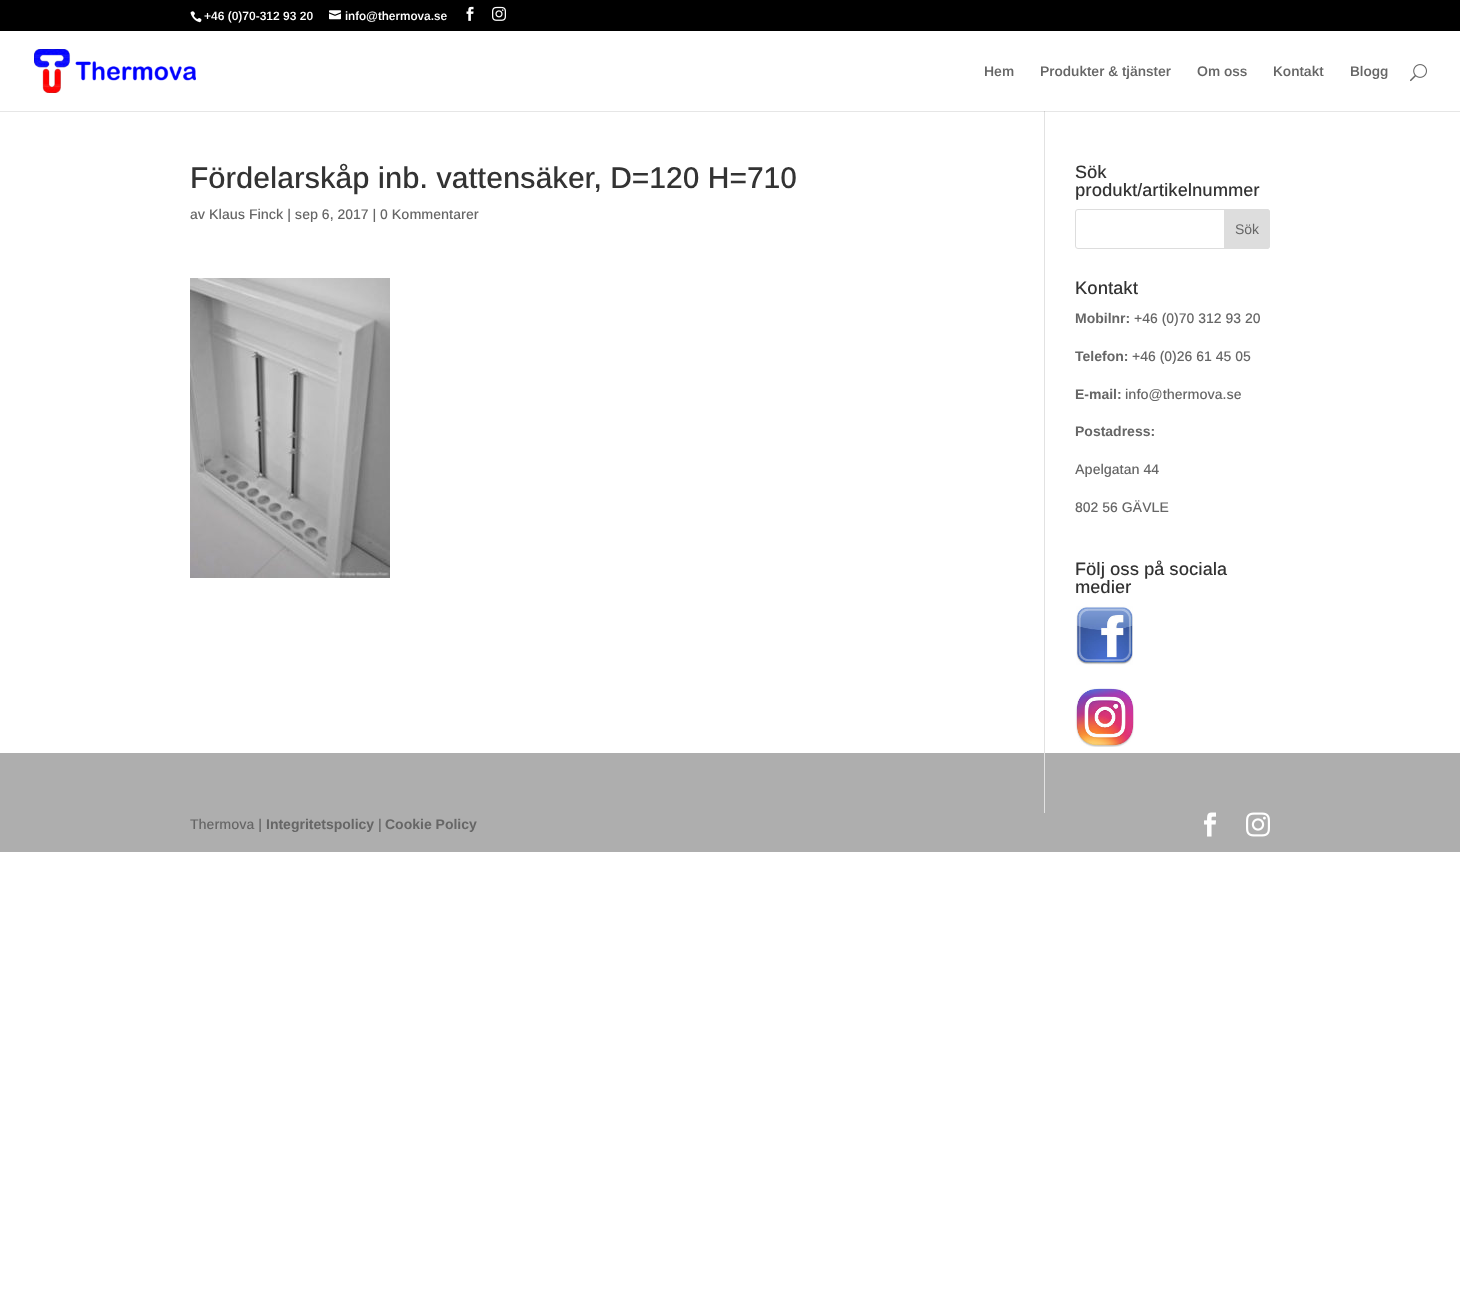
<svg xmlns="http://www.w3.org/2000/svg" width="1460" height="1316">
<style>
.a{font:600 12px Arimo;fill:#fff}
.b{font:600 14px Arimo;fill:#666}
.c{font:500 30px Arimo;fill:#333}
.d{font:500 14px Arimo;fill:#666}
.e{font:500 18px Arimo;fill:#333}
.f{font:14px Arimo;fill:#666}
.g{font:bold 14px Arimo;fill:#666}
</style>
<rect width="100%" height="100%" fill="#fff"/>
<path fill="#e6e6e6" d="M0 111h1460v1H0z"/>
<path fill="#000" d="M0 0h1460v31H0z"/>
<image href="1.png" x="190" y="11" width="12" height="12"/>
<image href="2.png" x="329" y="10" width="12" height="10"/>
<image href="3.png" x="466" y="6" width="8" height="15"/>
<image href="4.png" x="492" y="6" width="14" height="15"/>
<path fill="#aeaeae" d="M0 753h1460v99H0z"/>
<path fill="#e2e2e2" d="M1044 105h1v708H1044z"/>
<path fill="#fff" d="M1044 105h1v6H1044z"/>
<image href="5.png" x="34" y="49" width="162" height="44"/>
<image href="6.png" x="1410" y="64" width="17" height="18"/>
<path fill="#cbcbcb" d="M1044 111h1v1H1044z"/>
<image href="7.png" x="190" y="278" width="200" height="300"/>
<rect fill="none" stroke="#ddd" x="1075.5" y="209.5" width="194" height="39" rx="2.5"/>
<path fill="#ddd" stroke="#ddd" d="M1224.5 209.5h42.5c1.5 0 2.5 1 2.5 2.5v34c0 1.5-1 2.5-2.5 2.5h-42.5z"/>
<image href="8.png" x="1076" y="606" width="57" height="59"/>
<image href="9.png" x="1075" y="688" width="59" height="59"/>
<image href="10.png" x="1204" y="812" width="12" height="25"/>
<image href="11.png" x="1246" y="812" width="24" height="25"/>
<text class="a" x="204" y="20">+46 (0)70-312 93 20</text>
<text class="a" x="345" y="20">info@thermova.se</text>
<text class="b" x="984" y="76">Hem</text>
<text class="b" x="1040" y="76">Produkter &amp; tjänster</text>
<text class="b" x="1197" y="76">Om oss</text>
<text class="b" x="1273" y="76">Kontakt</text>
<text class="b" x="1350" y="76">Blogg</text>
<text class="c" x="190" y="188">Fördelarskåp inb. vattensäker, D=120 H=710</text>
<text class="d" x="190" y="219">av Klaus Finck | sep 6, 2017 | 0 Kommentarer</text>
<text class="e" x="1075" y="178">Sök</text>
<text class="e" x="1075" y="196">produkt/artikelnummer</text>
<text class="f" x="1235" y="234">Sök</text>
<text class="e" x="1075" y="294">Kontakt</text>
<text class="g" x="1075" y="323">Mobilnr:</text>
<text class="d" x="1134" y="323">+46 (0)70 312 93 20</text>
<text class="g" x="1075" y="361">Telefon:</text>
<text class="d" x="1132" y="361">+46 (0)26 61 45 05</text>
<text class="g" x="1075" y="399">E-mail:</text>
<text class="d" x="1125" y="399">info@thermova.se</text>
<text class="g" x="1075" y="436">Postadress:</text>
<text class="d" x="1075" y="474">Apelgatan 44</text>
<text class="d" x="1075" y="512">802 56 GÄVLE</text>
<text class="e" x="1075" y="575">Följ oss på sociala</text>
<text class="e" x="1075" y="593">medier</text>
<text class="d" x="190" y="829">Thermova |</text>
<text class="g" x="266" y="829">Integritetspolicy</text>
<text class="d" x="378" y="829">|</text>
<text class="g" x="385" y="829">Cookie Policy</text>
</svg>
